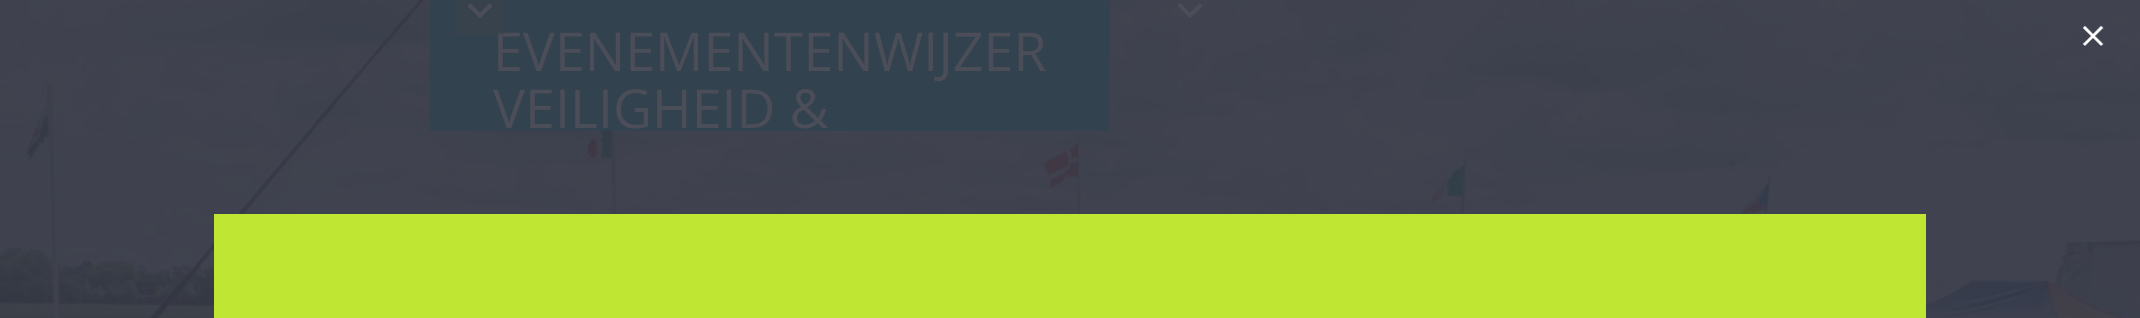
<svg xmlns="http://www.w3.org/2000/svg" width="2140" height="318">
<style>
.a{font:53.75px Open Sans;fill:#4b4e59}
</style>
<rect width="100%" height="100%" fill="#fff"/>
<image href="2.png" x="0" y="0" width="2140" height="318"/>
<image href="1.png" x="2082" y="25" width="22" height="22"/>
<path fill="#bfe633" d="M214 214h1712v104H214z"/>
<path fill="#4b4e59" d="M1180.5 3l9.5 9.5l9.5-9.5l3 3l-12.5 12.5l-12.5-12.5z"/>
<path fill="#32424f" d="M430 0h680v131H430z"/>
<text class="a" x="493" y="71">EVENEMENTENWIJZER</text>
<path fill="#3e414c80" d="M455 0h50v35H455z"/>
<path fill="#4b4e59" d="M470.5 3l9.5 9.5l9.5-9.5l3 3l-12.5 12.5l-12.5-12.5z"/>
<text class="a" x="493" y="128">VEILIGHEID &amp;</text>
</svg>
